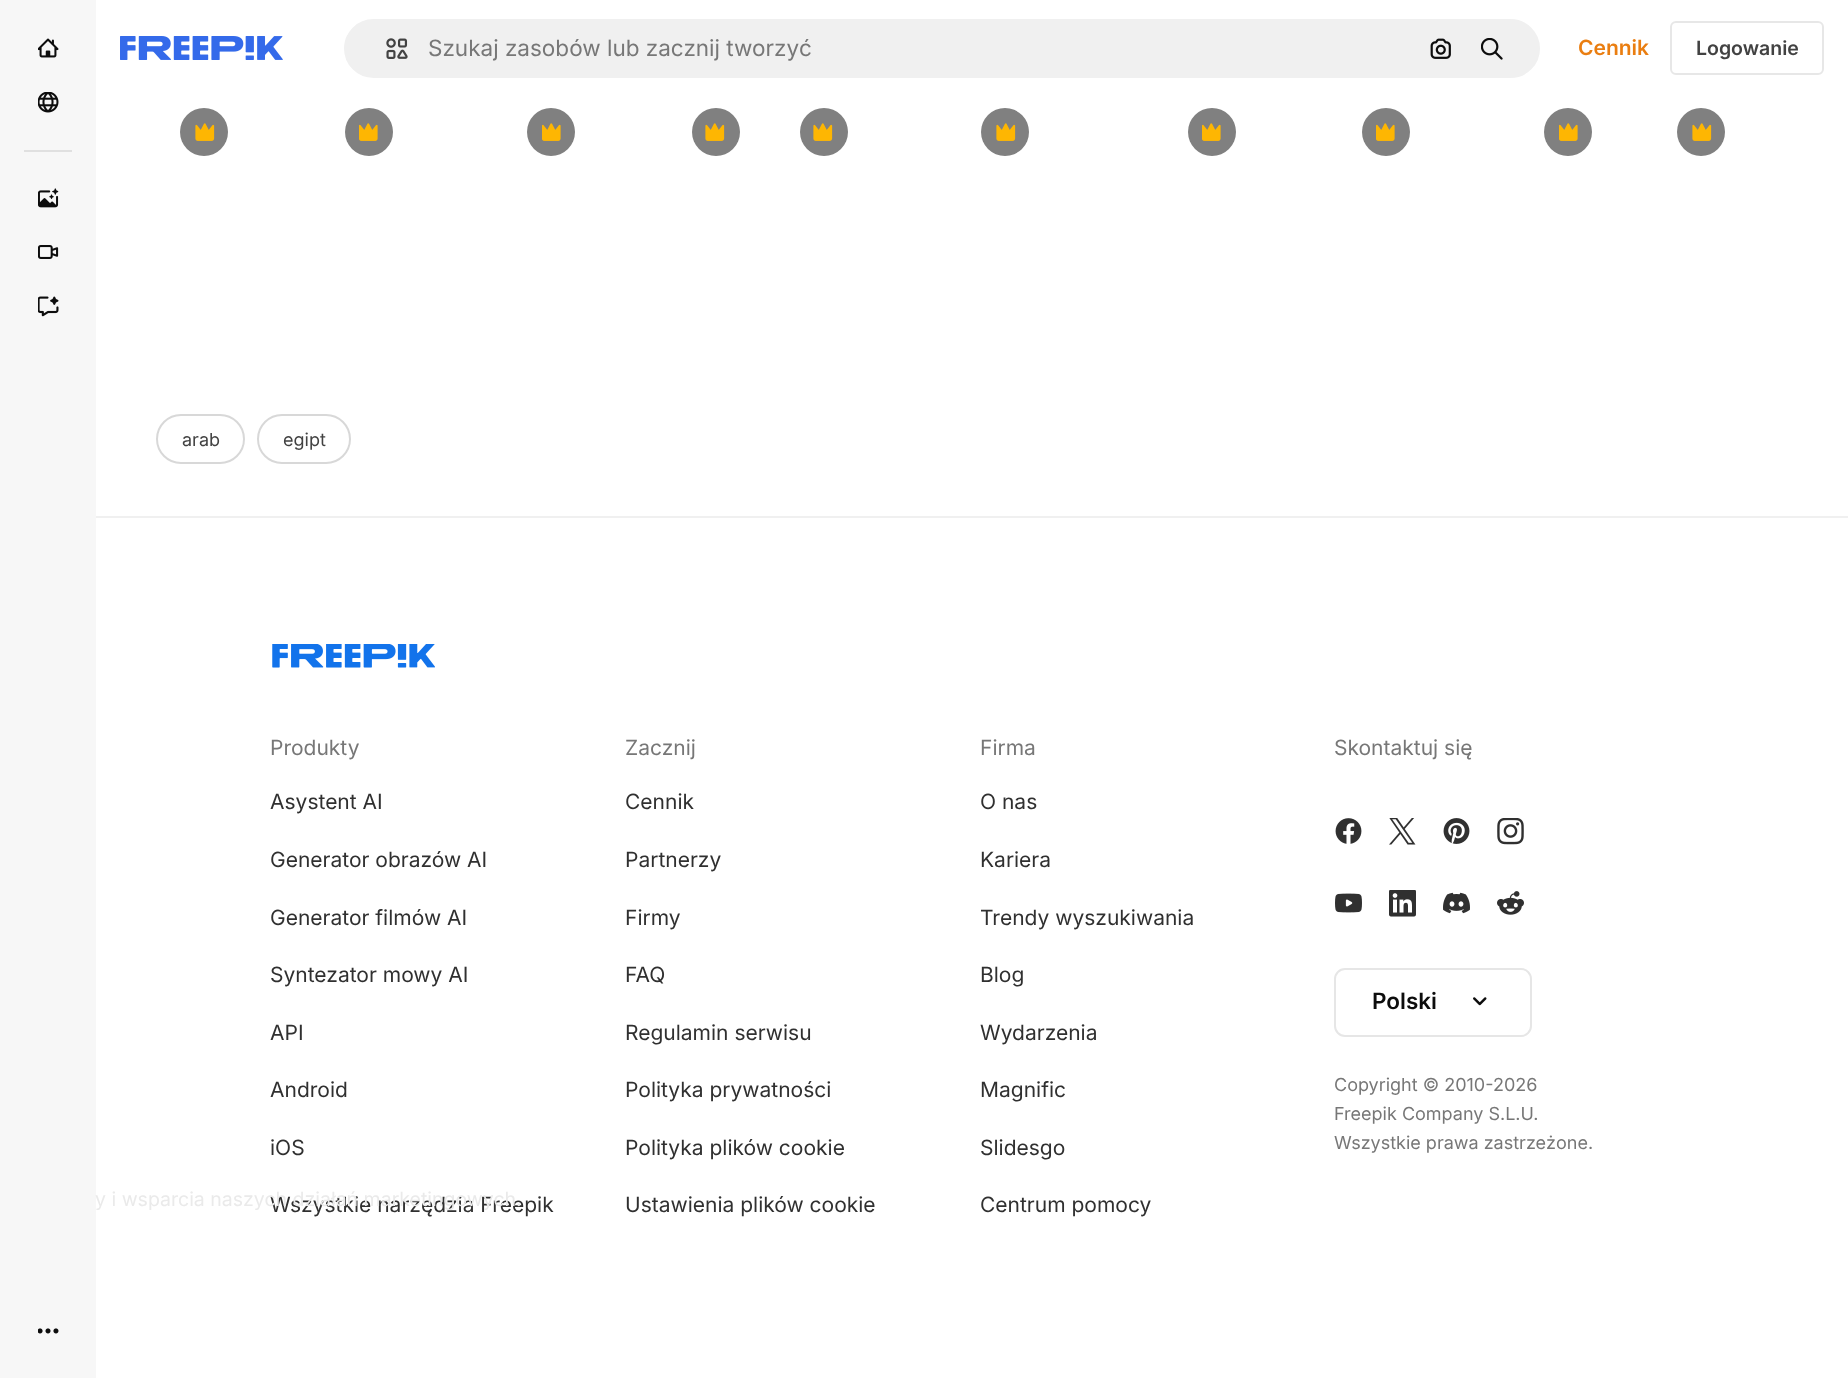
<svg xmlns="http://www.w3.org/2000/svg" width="1848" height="1378">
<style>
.a{font:22.5px Inter;fill:#777}
.b{font:600 21px Inter;fill:#ea7e11}
.c{font:600 19.5px Inter;fill:#424242}
.d{font:18px Inter;fill:#424242}
.e{font:21px Inter;fill:#777}
.f{font:21px Inter;fill:#303030}
.g{font:600 22.5px Inter;fill:#0d0d0d}
.h{font:18px Inter;fill:#777}
.i{font:19.5px Inter;fill:#eaeaea}
</style>
<rect width="100%" height="100%" fill="#fff"/>
<path fill="#f7f7f7" d="M0 0h96v1378H0z"/>
<image href="1.png" x="38" y="38" width="21" height="20"/>
<image href="2.png" x="38" y="92" width="21" height="21"/>
<path fill="#e0e0e0" d="M24 150h48v2H24z"/>
<image href="3.png" x="38" y="188" width="21" height="20"/>
<image href="4.png" x="38" y="245" width="21" height="14"/>
<image href="5.png" x="38" y="296" width="21" height="21"/>
<image href="6.png" x="38" y="1328" width="21" height="6"/>
<image href="7.png" x="120" y="36" width="163" height="24"/>
<rect fill="#f0f0f0" stroke="#fff" stroke-width="2" x="343" y="18" width="1198" height="61" rx="30.5"/>
<image href="8.png" x="386" y="38" width="22" height="21"/>
<image href="9.png" x="1430" y="38" width="21" height="21"/>
<image href="10.png" x="1481" y="38" width="22" height="22"/>
<rect fill="none" stroke="#e7e7e7" stroke-width="2" x="1671" y="22" width="152" height="52" rx="5"/>
<circle fill="#808080" cx="204" cy="132" r="24"/>
<image href="11.png" x="195" y="123" width="20" height="18"/>
<circle fill="#808080" cx="369" cy="132" r="24"/>
<image href="12.png" x="359" y="123" width="19" height="18"/>
<circle fill="#808080" cx="551" cy="132" r="24"/>
<image href="12.png" x="542" y="123" width="19" height="18"/>
<circle fill="#808080" cx="716" cy="132" r="24"/>
<image href="11.png" x="705" y="123" width="20" height="18"/>
<circle fill="#808080" cx="824" cy="132" r="24"/>
<image href="11.png" x="813" y="123" width="20" height="18"/>
<circle fill="#808080" cx="1005" cy="132" r="24"/>
<image href="11.png" x="996" y="123" width="20" height="18"/>
<circle fill="#808080" cx="1212" cy="132" r="24"/>
<image href="12.png" x="1202" y="123" width="19" height="18"/>
<circle fill="#808080" cx="1386" cy="132" r="24"/>
<image href="12.png" x="1376" y="123" width="19" height="18"/>
<circle fill="#808080" cx="1568" cy="132" r="24"/>
<image href="12.png" x="1559" y="123" width="19" height="18"/>
<circle fill="#808080" cx="1701" cy="132" r="24"/>
<image href="11.png" x="1692" y="123" width="20" height="18"/>
<rect fill="none" stroke="#d8d8d8" stroke-width="2" x="157" y="415" width="87" height="48" rx="24"/>
<rect fill="none" stroke="#d8d8d8" stroke-width="2" x="258" y="415" width="92" height="48" rx="24"/>
<path fill="#f0f0f0" d="M96 516h1752v2H96z"/>
<image href="13.png" x="272" y="644" width="163" height="24"/>
<image href="14.png" x="1335" y="818" width="27" height="26"/>
<image href="15.png" x="1389" y="818" width="27" height="27"/>
<image href="16.png" x="1443" y="818" width="27" height="26"/>
<image href="17.png" x="1497" y="818" width="27" height="27"/>
<image href="18.png" x="1335" y="893" width="27" height="20"/>
<image href="19.png" x="1389" y="890" width="27" height="27"/>
<image href="20.png" x="1443" y="892" width="27" height="22"/>
<image href="21.png" x="1497" y="891" width="27" height="24"/>
<rect fill="none" stroke="#e6e6e6" stroke-width="2" x="1335" y="969" width="196" height="67" rx="10"/>
<image href="22.png" x="1473" y="997" width="14" height="9"/>
<text class="a" x="428" y="56">Szukaj zasobów lub zacznij tworzyć</text>
<text class="b" x="1578" y="55">Cennik</text>
<text class="c" x="1696" y="55">Logowanie</text>
<text class="d" x="182" y="446">arab</text>
<text class="d" x="283" y="446">egipt</text>
<text class="e" x="270" y="755">Produkty</text>
<text class="f" x="270" y="809">Asystent AI</text>
<text class="f" x="270" y="867">Generator obrazów AI</text>
<text class="f" x="270" y="925">Generator filmów AI</text>
<text class="f" x="270" y="982">Syntezator mowy AI</text>
<text class="f" x="270" y="1040">API</text>
<text class="f" x="270" y="1097">Android</text>
<text class="f" x="270" y="1155">iOS</text>
<text class="f" x="270" y="1212">Wszystkie narzędzia Freepik</text>
<text class="e" x="625" y="755">Zacznij</text>
<text class="f" x="625" y="809">Cennik</text>
<text class="f" x="625" y="867">Partnerzy</text>
<text class="f" x="625" y="925">Firmy</text>
<text class="f" x="625" y="982">FAQ</text>
<text class="f" x="625" y="1040">Regulamin serwisu</text>
<text class="f" x="625" y="1097">Polityka prywatności</text>
<text class="f" x="625" y="1155">Polityka plików cookie</text>
<text class="f" x="625" y="1212">Ustawienia plików cookie</text>
<text class="e" x="980" y="755">Firma</text>
<text class="f" x="980" y="809">O nas</text>
<text class="f" x="980" y="867">Kariera</text>
<text class="f" x="980" y="925">Trendy wyszukiwania</text>
<text class="f" x="980" y="982">Blog</text>
<text class="f" x="980" y="1040">Wydarzenia</text>
<text class="f" x="980" y="1097">Magnific</text>
<text class="f" x="980" y="1155">Slidesgo</text>
<text class="f" x="980" y="1212">Centrum pomocy</text>
<text class="e" x="1334" y="755">Skontaktuj się</text>
<text class="g" x="1372" y="1009">Polski</text>
<text class="h" x="1334" y="1091">Copyright © 2010-</text>
<text class="h" x="1493" y="1091">2026</text>
<text class="h" x="1334" y="1120">Freepik Company S.L.U.</text>
<text class="h" x="1334" y="1149">Wszystkie prawa zastrzeżone.</text>
<text class="i" x="95" y="1206">y i wsparcia naszych działań marketingowych.</text>
</svg>
